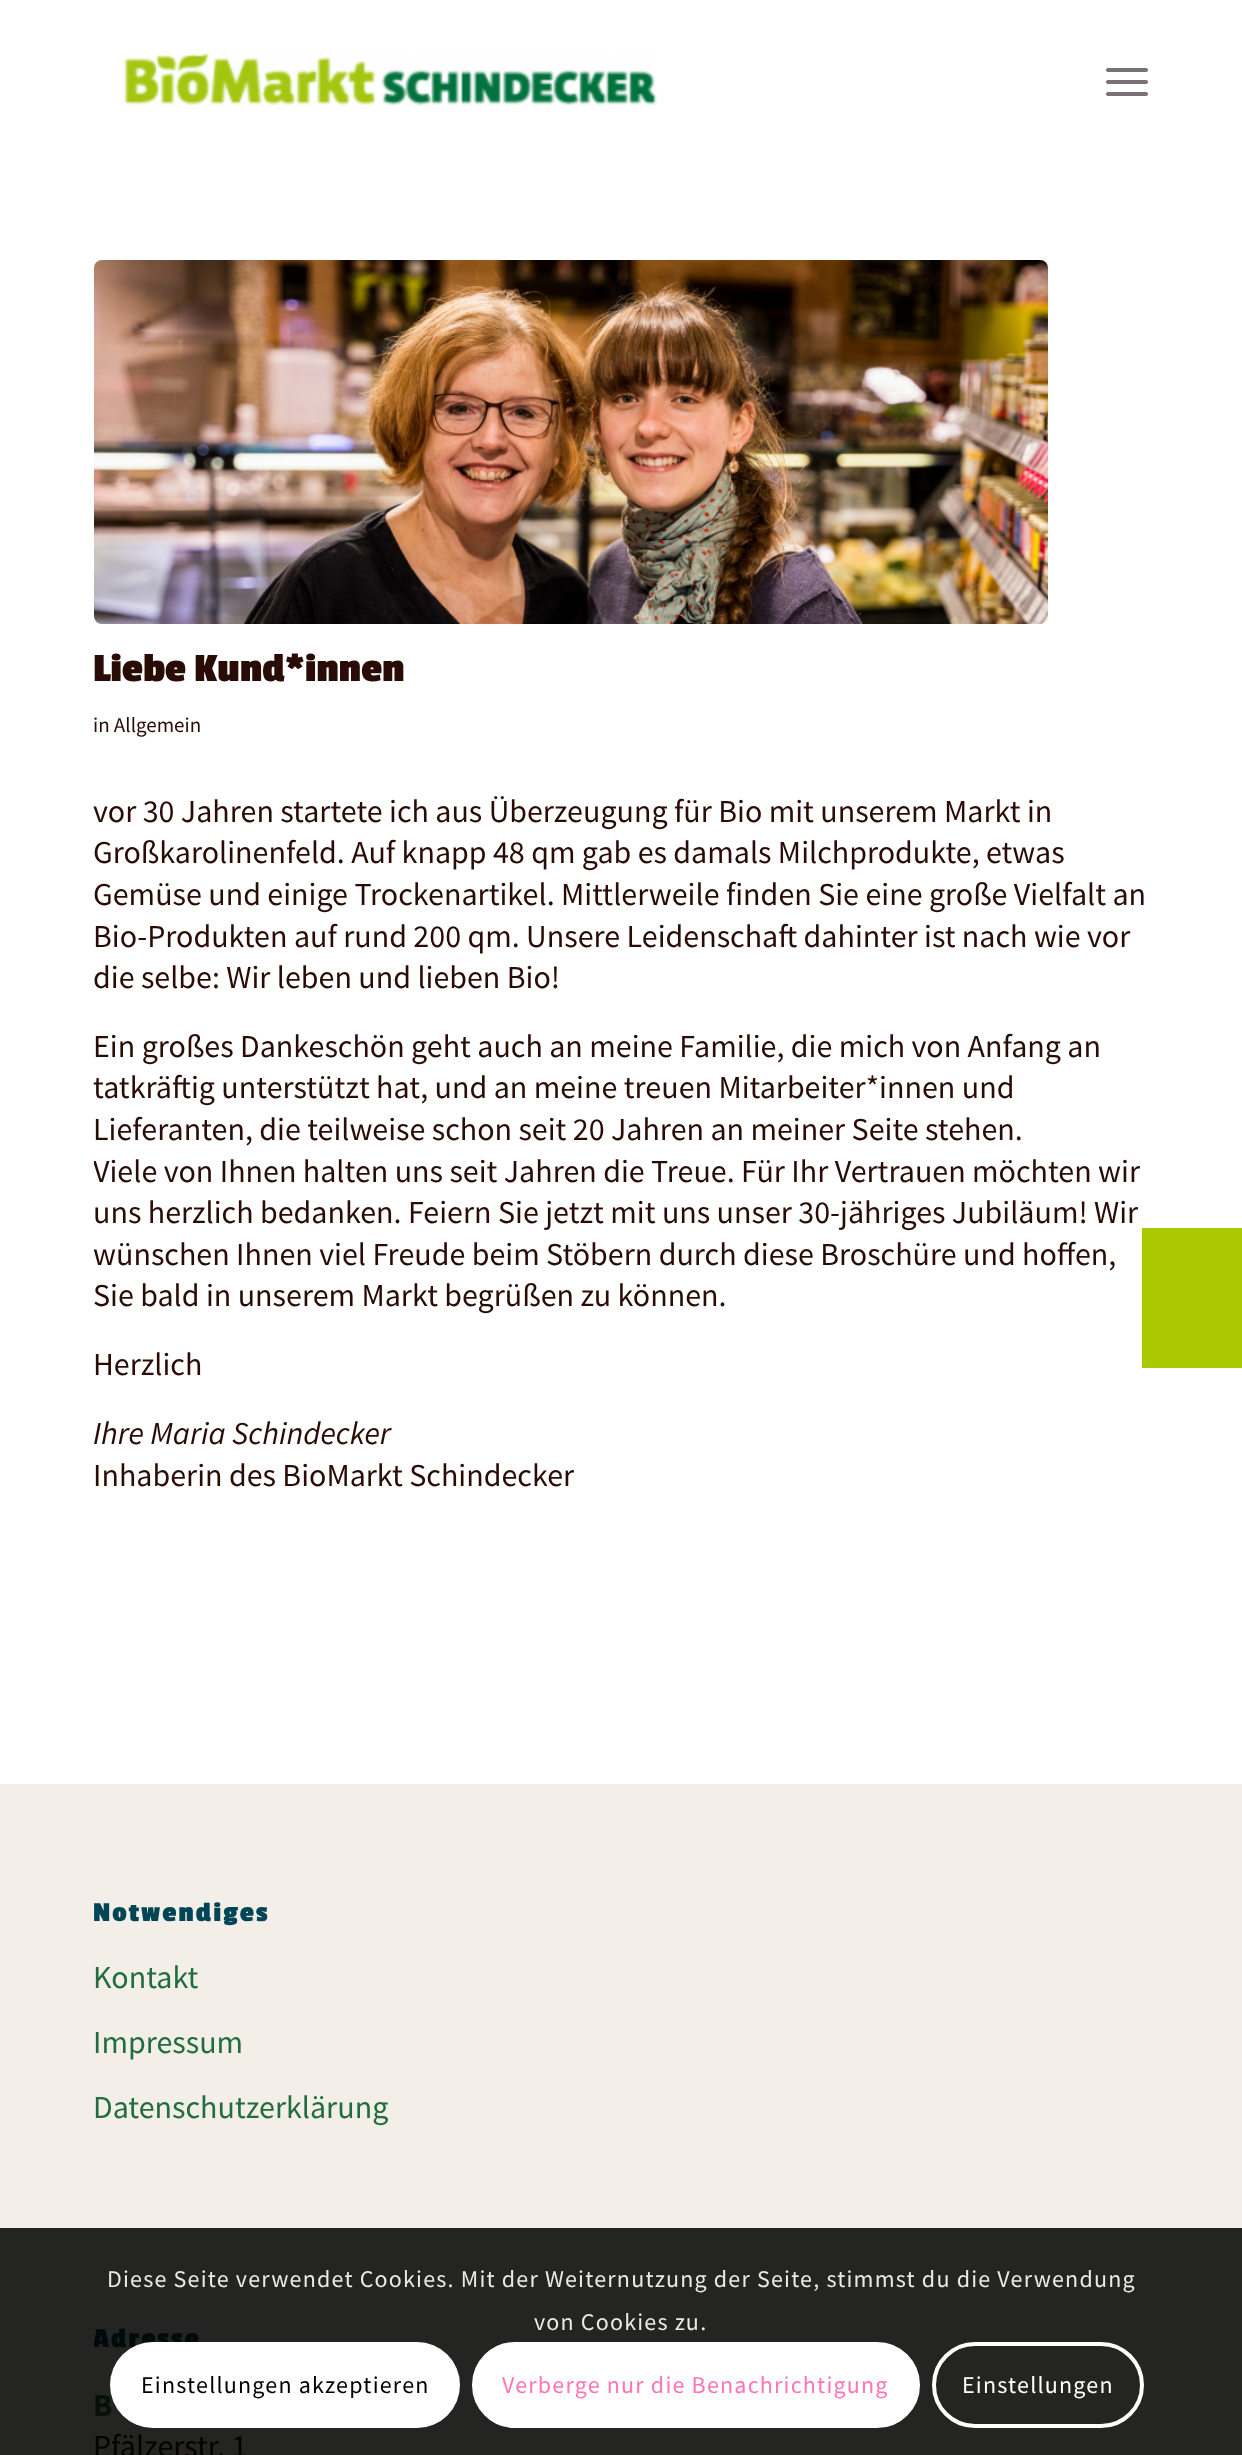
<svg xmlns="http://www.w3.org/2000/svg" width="1242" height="2455">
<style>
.a{font:bold 42px Passion One;fill:#2a0c06}
.b{font:21px Source Sans Pro;fill:#2a0c06}
.c{font:32px Source Sans Pro;fill:#2a0c06}
.d{font:italic 32px Source Sans Pro;fill:#2a0c06}
.e{font:bold 28.5px Passion One;letter-spacing:2px;fill:#004556}
.f{font:32px Source Sans Pro;fill:#206d3e}
.g{font:bold 28.5px Passion One;letter-spacing:2px;fill:#000a0d}
.h{font:bold 32px Source Sans Pro;fill:#051009}
.i{font:32px Source Sans Pro;fill:#060201}
.j{font:24px Source Sans Pro;letter-spacing:1.2px;fill:#e9e9e9}
.k{font:24px Source Sans Pro;letter-spacing:1.2px;fill:#000}
.l{font:24px Source Sans Pro;letter-spacing:1.2px;fill:#ff75b5}
.m{font:24px Source Sans Pro;letter-spacing:1.2px;fill:#fff}
</style>
<defs>
<clipPath id="clip1"><path d="M94 644h1054v998H94z"/></clipPath>
<clipPath id="clip2"><path d="M94 2300h1054v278H94z"/></clipPath>
</defs>
<rect width="100%" height="100%" fill="#fff"/>
<image href="1.png" x="123" y="53" width="534" height="53"/>
<rect fill="#787178" x="1106" y="80" width="42" height="4" rx="2"/>
<rect fill="#787178" x="1106" y="68" width="42" height="4" rx="2"/>
<rect fill="#787178" x="1106" y="92" width="42" height="4" rx="2"/>
<path fill="#abc900" d="M1142 1228h100v140H1142z"/>
<image href="2.png" x="94" y="260" width="954" height="364"/>
<path fill="#f3eee8" d="M0 1784h1242v444H0z"/>
<path fill="#242423" d="M0 2228h1242v227H0z"/>
<rect fill="#fff" stroke="#fff" stroke-width="4" x="474" y="2344" width="444" height="82" rx="41"/>
<rect fill="none" stroke="#fff" stroke-width="4" x="934" y="2344" width="208" height="82" rx="41"/>
<text class="a" x="93" y="681">Liebe Kund*innen</text>
<text class="b" x="93" y="732">in Allgemein</text>
<text class="c" x="93" y="822">vor 30 Jahren startete ich aus Überzeugung für Bio mit unserem Markt in</text>
<text class="c" x="93" y="863">Großkarolinenfeld. Auf knapp 48 qm gab es damals Milchprodukte, etwas</text>
<text class="c" x="93" y="905">Gemüse und einige Trockenartikel. Mittlerweile finden Sie eine große Vielfalt an</text>
<text class="c" x="93" y="947">Bio-Produkten auf rund 200 qm. Unsere Leidenschaft dahinter ist nach wie vor</text>
<text class="c" x="93" y="988">die selbe: Wir leben und lieben Bio!</text>
<text class="c" x="93" y="1057">Ein großes Dankeschön geht auch an meine Familie, die mich von Anfang an</text>
<text class="c" x="93" y="1098">tatkräftig unterstützt hat, und an meine treuen Mitarbeiter*innen und</text>
<text class="c" x="93" y="1140">Lieferanten, die teilweise schon seit 20 Jahren an meiner Seite stehen.</text>
<g clip-path="url(#clip1)">
<text class="c" x="93" y="1182">Viele von Ihnen halten uns seit Jahren die Treue. Für Ihr Vertrauen möchten wir</text>
</g>
<text class="c" x="93" y="1223">uns herzlich bedanken. Feiern Sie jetzt mit uns unser 30-jähriges Jubiläum! Wir</text>
<text class="c" x="93" y="1265">wünschen Ihnen viel Freude beim Stöbern durch diese Broschüre und hoffen,</text>
<text class="c" x="93" y="1306">Sie bald in unserem Markt begrüßen zu können.</text>
<text class="c" x="93" y="1375">Herzlich</text>
<text class="d" x="93" y="1444">Ihre Maria Schindecker</text>
<text class="c" x="93" y="1486">Inhaberin des BioMarkt Schindecker</text>
<text class="e" x="93" y="1921">Notwendiges</text>
<text class="f" x="93" y="1988">Kontakt</text>
<text class="f" x="93" y="2053">Impressum</text>
<text class="f" x="93" y="2118">Datenschutzerklärung</text>
<g clip-path="url(#clip2)">
<text class="g" x="93" y="2347">Adresse</text>
</g>
<text class="h" x="93" y="2416">B</text>
<text class="i" x="93" y="2457">Pfälzerstr. 1</text>
<text class="j" x="107" y="2287">Diese Seite verwendet Cookies. Mit der Weiternutzung der Seite, stimmst du die Verwendung</text>
<text class="j" x="534" y="2330">von Cookies zu.</text>
<rect fill="#fff" x="110" y="2342" width="350" height="86" rx="43"/>
<text class="k" x="141" y="2393">Einstellungen akzeptieren</text>
<text class="l" x="502" y="2393">Verberge nur die Benachrichtigung</text>
<text class="m" x="962" y="2393">Einstellungen</text>
</svg>
